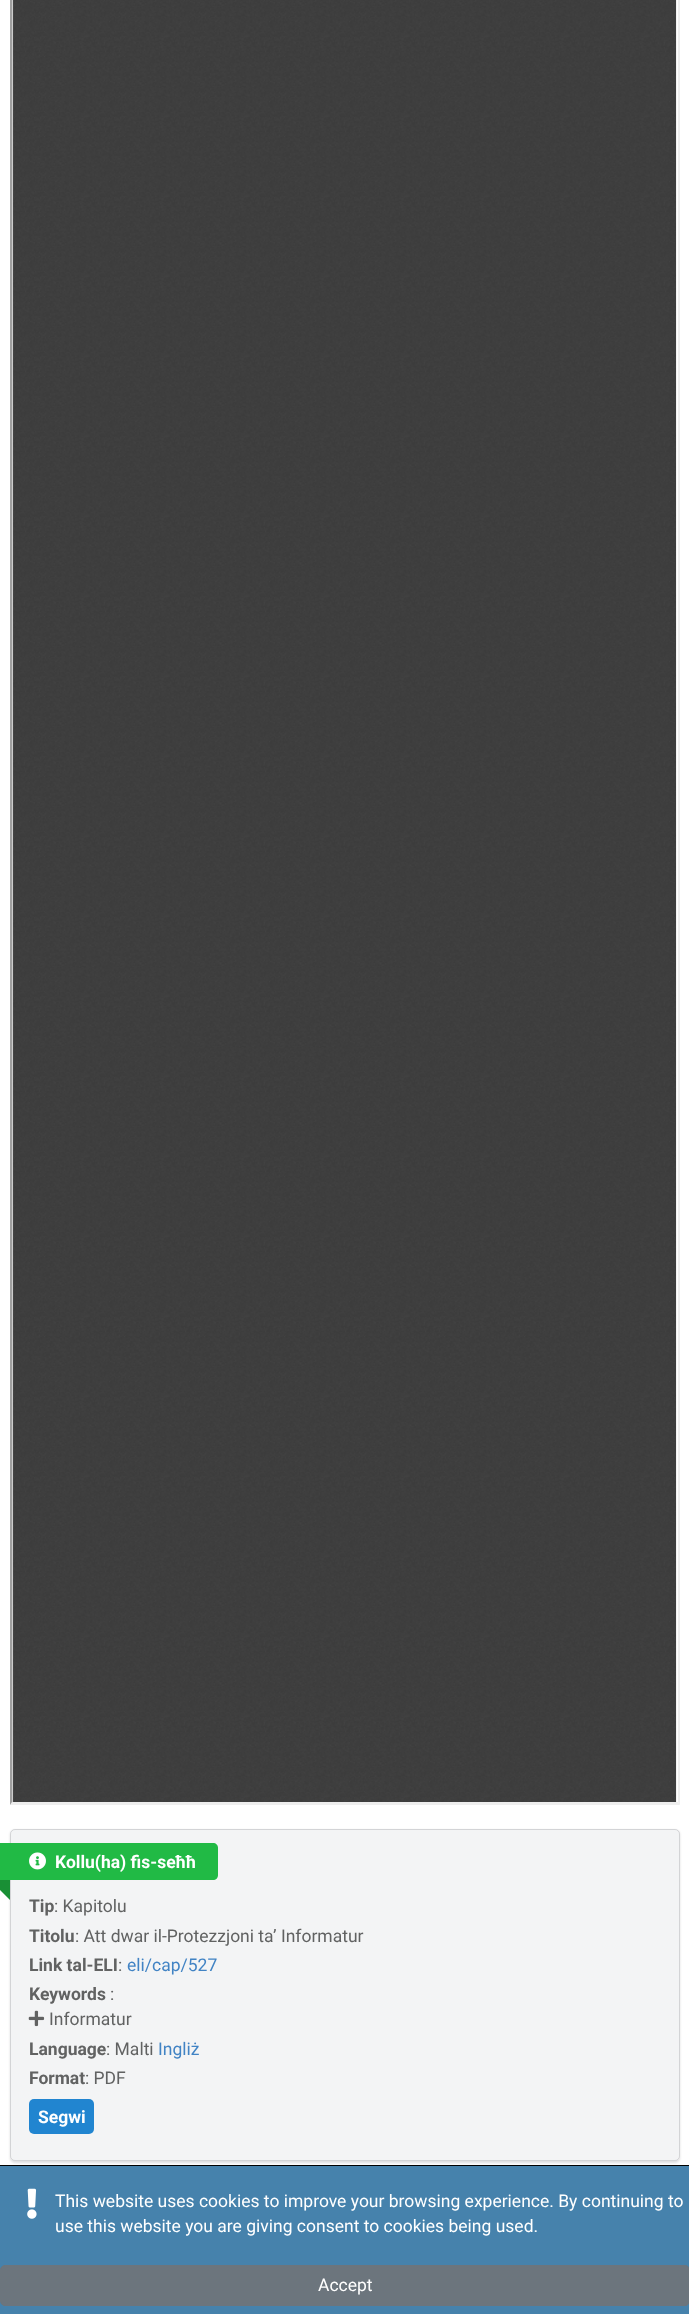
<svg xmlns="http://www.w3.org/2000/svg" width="689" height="2314">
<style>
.a{font:bold 17.5px Roboto;fill:#fff}
.b{font:bold 17.5px Roboto;fill:#616262}
.c{font:17.5px Roboto;fill:#616262}
.d{font:17.5px Roboto;fill:#4183c4}
.e{font:17.5px Roboto;fill:#fff}
</style>
<rect width="100%" height="100%" fill="#fff"/>
<path fill="#eee" d="M680-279v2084l-2-3v-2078z"/>
<path fill="#eee" d="M680 1805h-670l2-3h666z"/>
<path fill="#9f9f9f" d="M10 1805v-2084l2 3v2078z"/>
<image href="1.png" x="12" y="0" width="665" height="1802"/>
<rect fill="#22242626" filter="blur(1px)" x="10" y="1830" width="670" height="333" rx="5"/>
<rect fill="#f3f4f5" x="10" y="1829" width="670" height="332" rx="5"/>
<rect fill="none" stroke="#22242626" x="10.5" y="1829.5" width="669" height="331" rx="4.5"/>
<path fill="#21ba45" d="M-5 1843h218c3 0 5 2 5 5v27c0 3-2 5-5 5h-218z"/>
<image href="2.png" x="29" y="1852" width="17" height="18"/>
<path fill="#198f35" d="M10 1880v20l-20-20z"/>
<image href="3.png" x="28" y="2010" width="17" height="17"/>
<rect fill="#2185d0" x="29" y="2099" width="65" height="35" rx="5"/>
<path fill="#4682ac" d="M0 2166h689v148H0z"/>
<path fill="#000" d="M0 2165h689v1H0z"/>
<image href="4.png" x="27" y="2188" width="10" height="31"/>
<rect fill="#6c757d" stroke="#6c757d" x="0.5" y="2265.5" width="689" height="40" rx="4.5"/>
<text class="a" x="55" y="1868">Kollu(ha) fis-seħħ</text>
<text class="b" x="29" y="1912">Tip</text>
<text class="c" x="54" y="1912">: Kapitolu</text>
<text class="b" x="29" y="1942">Titolu</text>
<text class="c" x="75" y="1942">: Att dwar il-Protezzjoni ta’ Informatur</text>
<text class="b" x="29" y="1971">Link tal-ELI</text>
<text class="c" x="118" y="1971">:</text>
<text class="d" x="127" y="1971">eli/cap/527</text>
<text class="b" x="29" y="2000">Keywords</text>
<text class="c" x="110" y="2000">:</text>
<text class="c" x="49" y="2025">Informatur</text>
<text class="b" x="29" y="2055">Language</text>
<text class="c" x="106" y="2055">: Malti</text>
<text class="d" x="158" y="2055">Ingliż</text>
<text class="b" x="29" y="2084">Format</text>
<text class="c" x="85" y="2084">: PDF</text>
<text class="a" x="38" y="2123">Segwi</text>
<text class="e" x="55" y="2207">This website uses cookies to improve your browsing experience. By continuing to</text>
<text class="e" x="55" y="2232">use this website you are giving consent to cookies being used.</text>
<text class="e" x="318" y="2291">Accept</text>
</svg>
